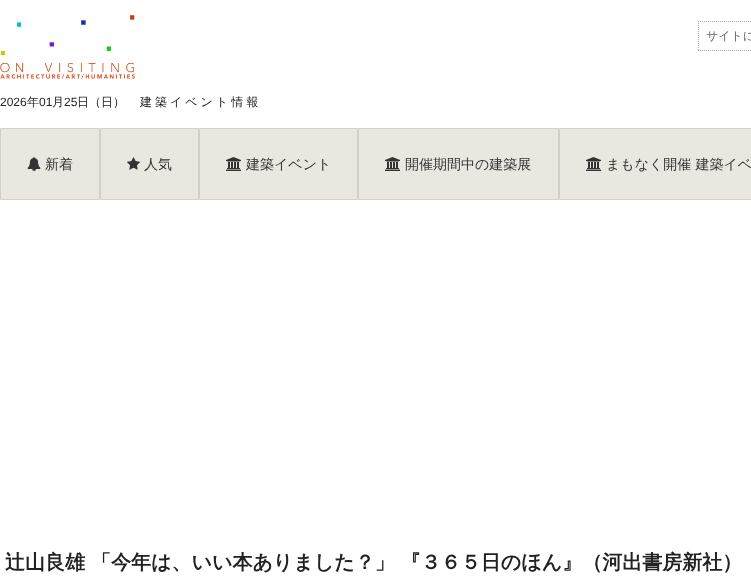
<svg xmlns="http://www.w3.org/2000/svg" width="751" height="587">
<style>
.a{font:500 12px WenQuanYi Zen Hei;fill:#666}
.b{font:12px Liberation Sans;fill:#222}
.c{font:500 12px WenQuanYi Zen Hei;fill:#222}
.d{font:500 12px WenQuanYi Zen Hei;letter-spacing:3px;fill:#222}
.e{font:500 14px WenQuanYi Zen Hei;fill:#333}
.f{font:bold 20px WenQuanYi Zen Hei;fill:#222}
</style>
<rect width="100%" height="100%" fill="#fff"/>
<image href="1.png" x="0" y="15" width="135" height="64"/>
<path fill="none" stroke="#aaa" stroke-dasharray="1 1" d="M698 21.5h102m-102 29h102m-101.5-29.5v30"/>
<path fill="#e9e7e0" stroke="#d1d1ca" d="M0.5 128.5h99v71H0.5z"/>
<image href="2.png" x="27" y="157" width="14" height="14"/>
<path fill="#e9e7e0" stroke="#d1d1ca" d="M100.5 128.5h98v71H100.5z"/>
<image href="3.png" x="127" y="157" width="13" height="13"/>
<path fill="#e9e7e0" stroke="#d1d1ca" d="M199.5 128.5h158v71H199.5z"/>
<image href="4.png" x="226" y="157" width="15" height="14"/>
<path fill="#e9e7e0" stroke="#d1d1ca" d="M358.5 128.5h200v71H358.5z"/>
<image href="4.png" x="385" y="157" width="15" height="14"/>
<path fill="#e9e7e0" stroke="#d1d1ca" d="M559.5 128.5h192v71H559.5z"/>
<image href="4.png" x="586" y="157" width="15" height="14"/>
<text class="a" x="706" y="40">サイトに</text>
<text class="b" x="0" y="106">2026</text>
<text class="c" x="27" y="106">年</text>
<text class="b" x="39" y="106">01</text>
<text class="c" x="52" y="106">月</text>
<text class="b" x="64" y="106">25</text>
<text class="c" x="77" y="106">日（日）</text>
<text class="d" x="140" y="106">建築イベント情報</text>
<text class="e" x="45" y="169">新着</text>
<text class="e" x="144" y="169">人気</text>
<text class="e" x="246" y="169">建築イベント</text>
<text class="e" x="405" y="169">開催期間中の建築展</text>
<text class="e" x="606" y="169">まもなく開催 建築イベ</text>
<text class="f" x="5" y="569">辻山良雄 「今年は、いい本ありました？」 『３６５日のほん』（河出書房新社）</text>
</svg>
